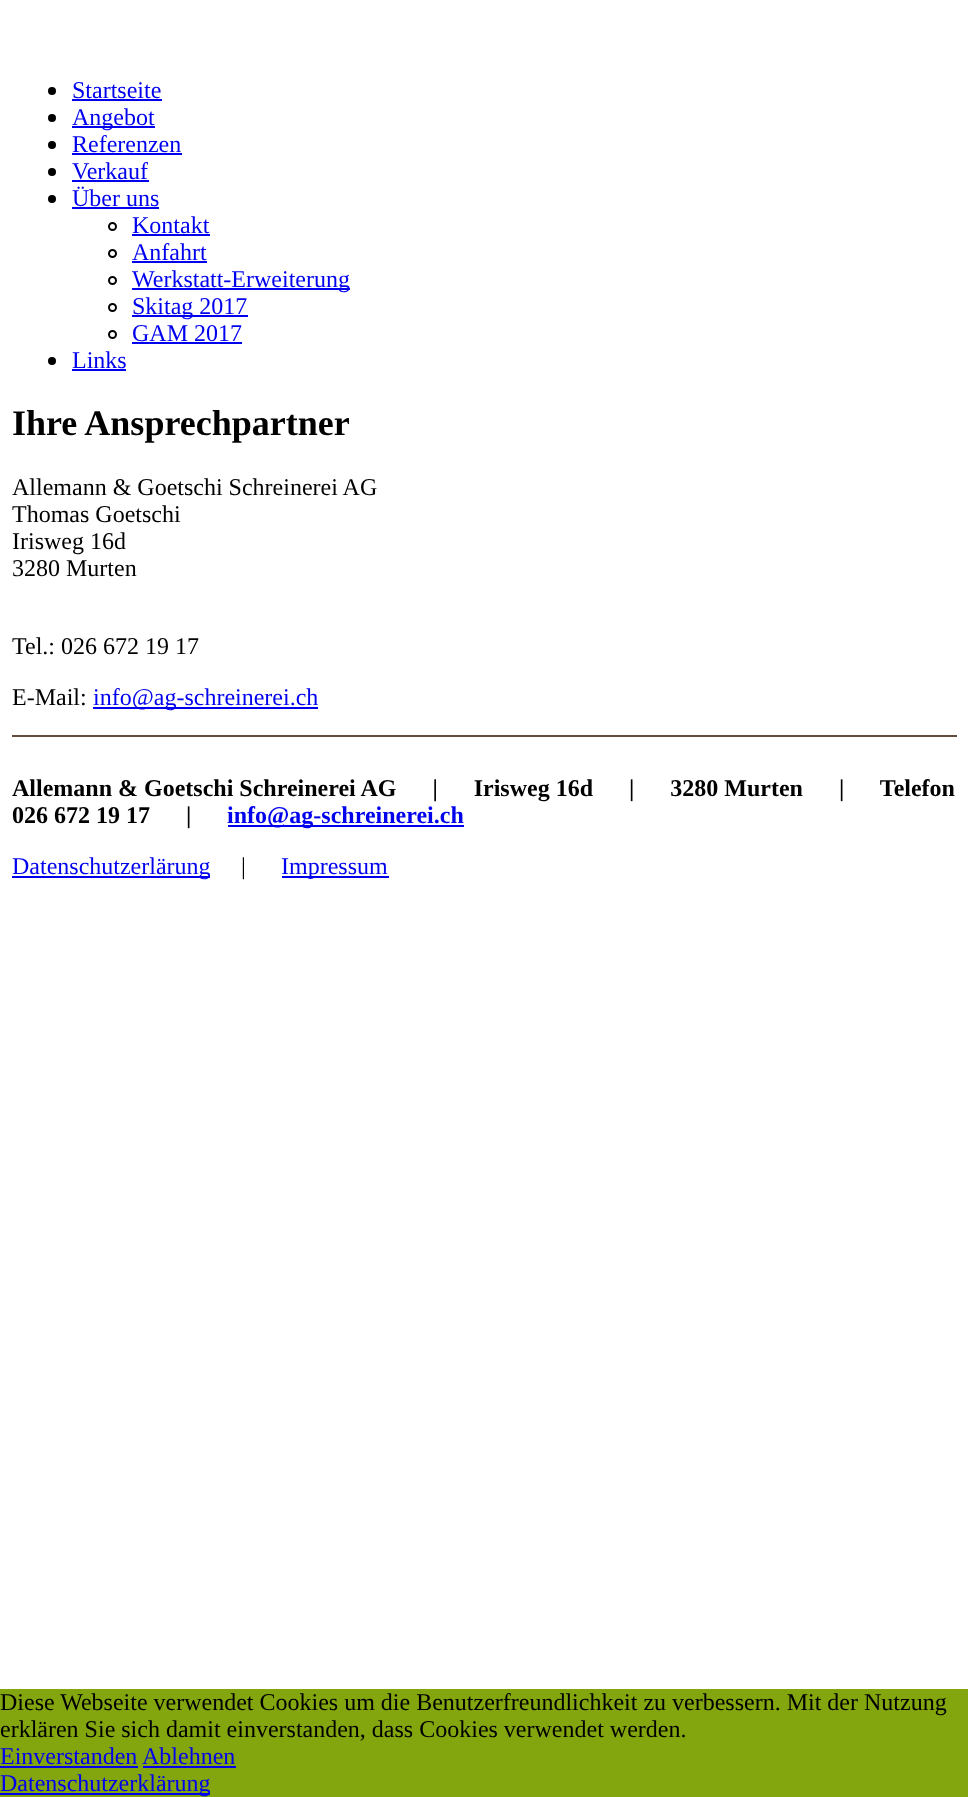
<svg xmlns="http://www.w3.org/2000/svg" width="968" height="1797">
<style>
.a{font:24px Liberation Serif;fill:#00e}
.b{font:bold 36px Liberation Serif;fill:#000}
.c{font:24px Liberation Serif;fill:#000}
.d{font:bold 24px Liberation Serif;fill:#000}
.e{font:bold 24px Liberation Serif;fill:#00e}
</style>
<rect width="100%" height="100%" fill="#fff"/>
<circle fill="#000" cx="52" cy="91" r="4"/>
<path fill="#00e" d="M72 99h90v2H72z"/>
<circle fill="#000" cx="52" cy="118" r="4"/>
<path fill="#00e" d="M72 126h83v2H72z"/>
<circle fill="#000" cx="52" cy="145" r="4"/>
<path fill="#00e" d="M72 153h110v2H72z"/>
<circle fill="#000" cx="52" cy="172" r="4"/>
<path fill="#00e" d="M72 180h77v2H72z"/>
<circle fill="#000" cx="52" cy="199" r="4"/>
<path fill="#00e" d="M72 207h87v2H72z"/>
<circle fill="none" stroke="#000" stroke-width="2" cx="112.5" cy="226.5" r="3.5"/>
<path fill="#00e" d="M132 234h78v2H132z"/>
<circle fill="none" stroke="#000" stroke-width="2" cx="112.5" cy="253.5" r="3.5"/>
<path fill="#00e" d="M132 261h75v2H132z"/>
<circle fill="none" stroke="#000" stroke-width="2" cx="112.5" cy="280.5" r="3.5"/>
<path fill="#00e" d="M132 288h218v2H132z"/>
<circle fill="none" stroke="#000" stroke-width="2" cx="112.5" cy="307.5" r="3.5"/>
<path fill="#00e" d="M132 315h116v2H132z"/>
<circle fill="none" stroke="#000" stroke-width="2" cx="112.5" cy="334.5" r="3.5"/>
<path fill="#00e" d="M132 342h110v2H132z"/>
<circle fill="#000" cx="52" cy="361" r="4"/>
<path fill="#00e" d="M72 369h54v2H72z"/>
<path fill="#00e" d="M93 707h225v2H93z"/>
<path fill="#604c3f" d="M12 735h945v2H12z"/>
<path fill="#00e" d="M228 825h236v2H228z"/>
<path fill="#00e" d="M12 876h198v2H12z"/>
<path fill="#00e" d="M282 876h107v2H282z"/>
<path fill="#83a60e" d="M0 1689h968v108H0z"/>
<path fill="#00e" d="M0 1766h138v2H0z"/>
<path fill="#00e" d="M143 1766h93v2H143z"/>
<path fill="#00e" d="M0 1793h210v2H0z"/>
<text class="a" x="72" y="98">Startseite</text>
<text class="a" x="72" y="125">Angebot</text>
<text class="a" x="72" y="152">Referenzen</text>
<text class="a" x="72" y="179">Verkauf</text>
<text class="a" x="72" y="206">Über uns</text>
<text class="a" x="132" y="233">Kontakt</text>
<text class="a" x="132" y="260">Anfahrt</text>
<text class="a" x="132" y="287">Werkstatt-Erweiterung</text>
<text class="a" x="132" y="314">Skitag 2017</text>
<text class="a" x="132" y="341">GAM 2017</text>
<text class="a" x="72" y="368">Links</text>
<text class="b" x="12" y="435">Ihre Ansprechpartner</text>
<text class="c" x="12" y="495">Allemann &amp; Goetschi Schreinerei AG</text>
<text class="c" x="12" y="522">Thomas Goetschi</text>
<text class="c" x="12" y="549">Irisweg 16d</text>
<text class="c" x="12" y="576">3280 Murten</text>
<text class="c" x="12" y="654">Tel.: 026 672 19 17</text>
<text class="c" x="12" y="705">E-Mail:</text>
<text class="a" x="93" y="705">info@ag-schreinerei.ch</text>
<text class="d" xml:space="preserve" x="12" y="796">Allemann &amp; Goetschi Schreinerei AG      |      Irisweg 16d      |      3280 Murten      |      Telefon</text>
<text class="d" xml:space="preserve" x="12" y="823">026 672 19 17      |</text>
<text class="e" x="227" y="823">info@ag-schreinerei.ch</text>
<text class="a" x="12" y="874">Datenschutzerlärung</text>
<text class="c" x="241" y="874">|</text>
<text class="a" x="281" y="874">Impressum</text>
<text class="c" x="0" y="1710">Diese Webseite verwendet Cookies um die Benutzerfreundlichkeit zu verbessern. Mit der Nutzung</text>
<text class="c" x="0" y="1737">erklären Sie sich damit einverstanden, dass Cookies verwendet werden.</text>
<text class="a" x="0" y="1764">Einverstanden</text>
<text class="a" x="142" y="1764">Ablehnen</text>
<text class="a" x="0" y="1791">Datenschutzerklärung</text>
</svg>
